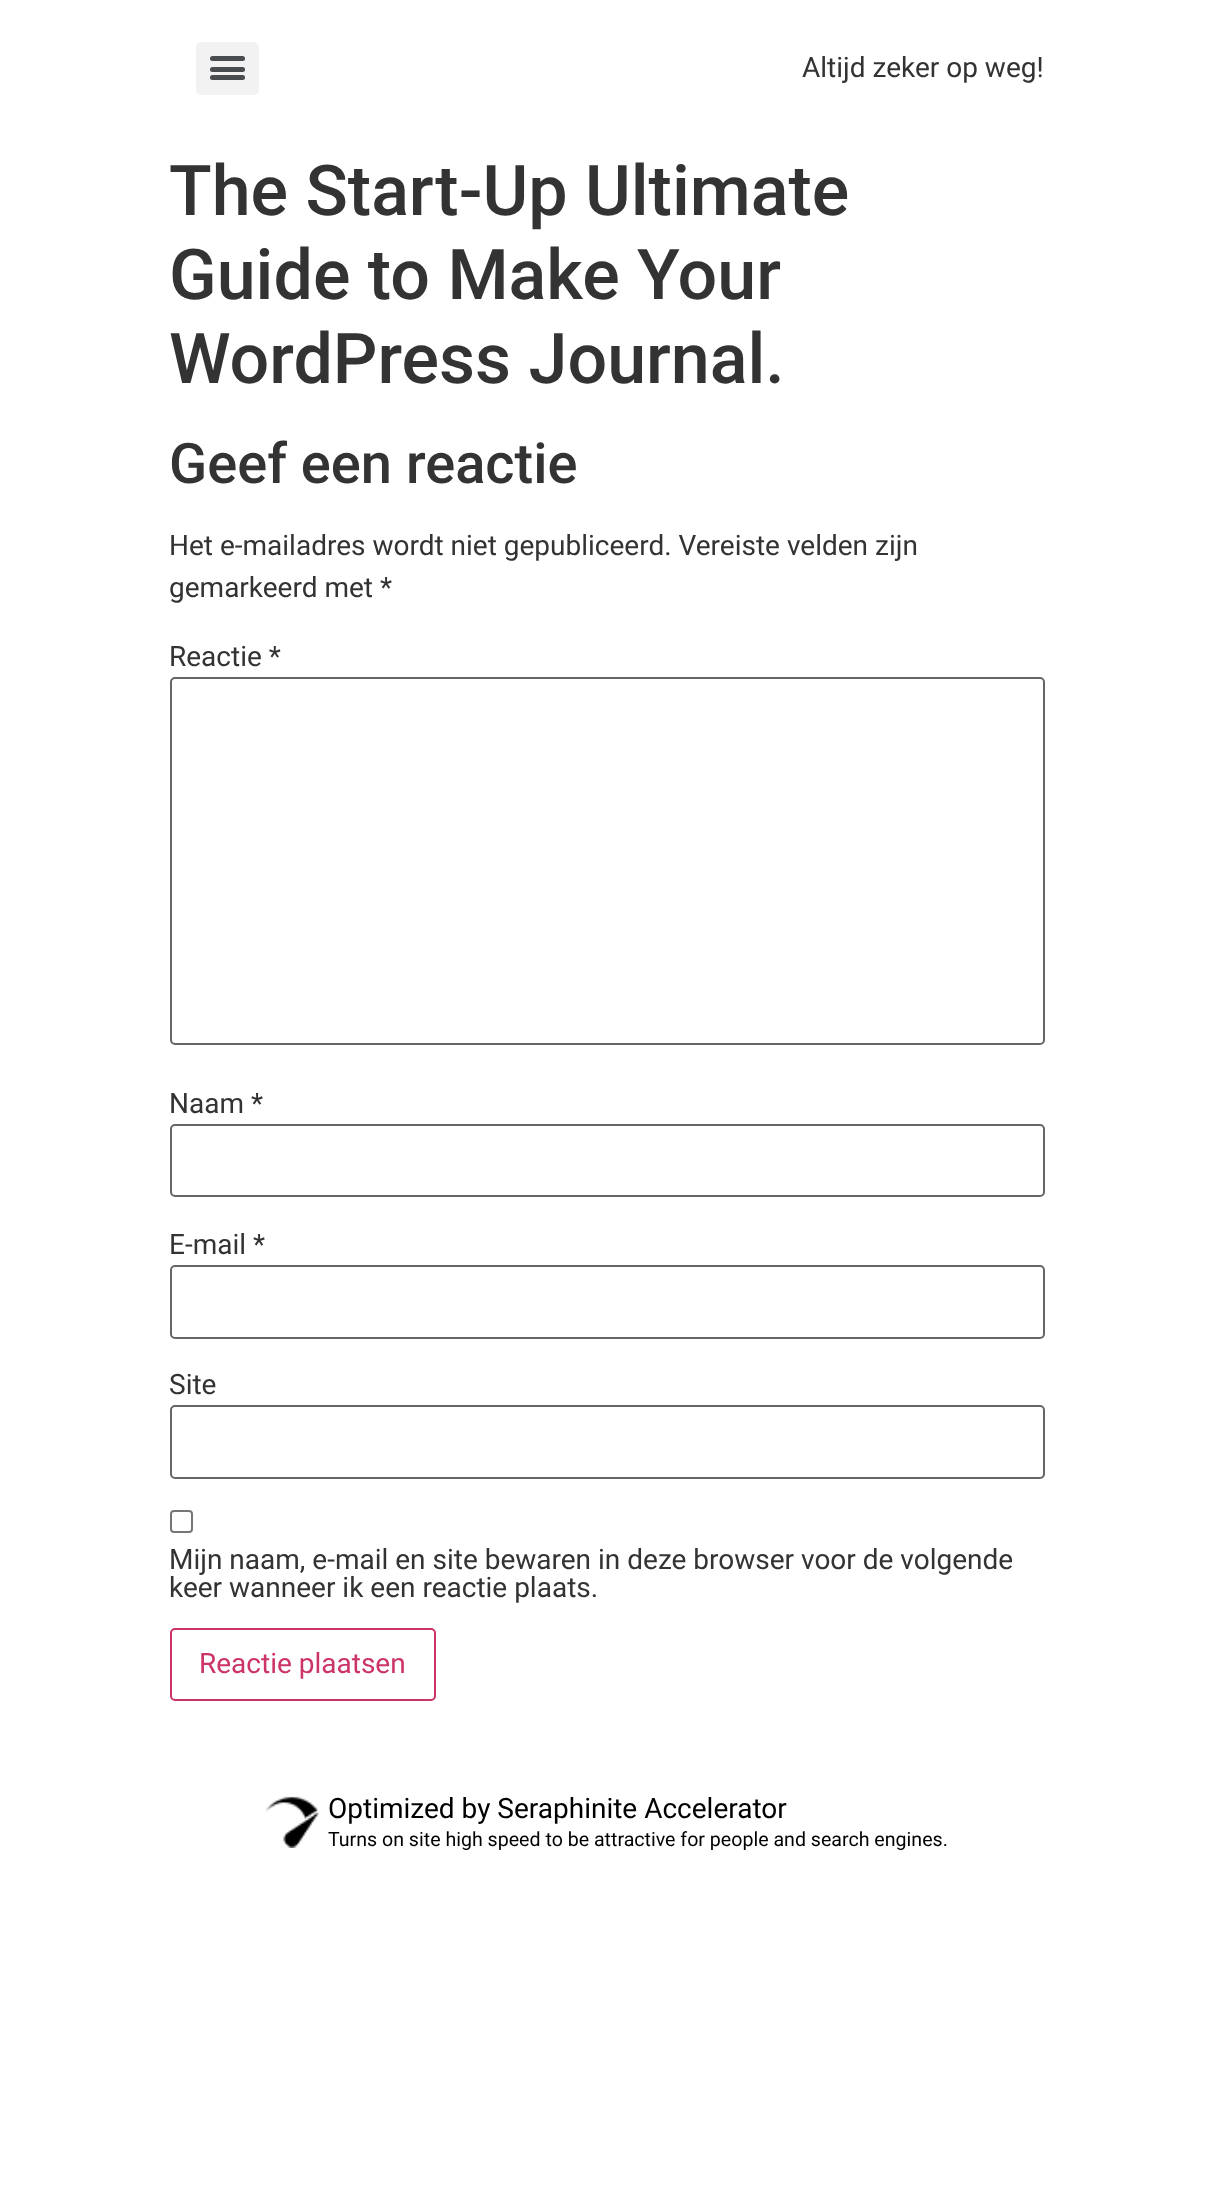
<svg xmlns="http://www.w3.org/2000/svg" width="1212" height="2212">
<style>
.a{font:28px Roboto;fill:#333}
.b{font:500 70px Roboto;fill:#333}
.c{font:500 56px Roboto;fill:#333}
.d{font:28px Roboto;fill:#c36}
.e{font:28px Roboto;fill:#000}
.f{font:19.6px Roboto;fill:#000}
</style>
<rect width="100%" height="100%" fill="#fff"/>
<rect fill="#f2f2f2" x="196" y="42" width="63" height="53" rx="5"/>
<rect fill="#494c4f" x="210" y="67" width="35" height="5" rx="2.5"/>
<rect fill="#494c4f" x="210" y="56" width="35" height="5" rx="2.5"/>
<rect fill="#494c4f" x="210" y="75" width="35" height="5" rx="2.5"/>
<rect fill="none" stroke="#666" stroke-width="2" x="171" y="678" width="873" height="366" rx="4"/>
<rect fill="none" stroke="#666" stroke-width="2" x="171" y="1125" width="873" height="71" rx="4"/>
<rect fill="none" stroke="#666" stroke-width="2" x="171" y="1266" width="873" height="72" rx="4"/>
<rect fill="none" stroke="#666" stroke-width="2" x="171" y="1406" width="873" height="72" rx="4"/>
<rect fill="none" stroke="#767676" stroke-width="2" x="171" y="1511" width="21" height="21" rx="3"/>
<rect fill="none" stroke="#c36" stroke-width="2" x="171" y="1629" width="264" height="71" rx="4"/>
<image href="1.png" x="266" y="1796" width="53" height="52"/>
<text class="a" x="802" y="77">Altijd zeker op weg!</text>
<text class="b" x="169" y="215">The Start-Up Ultimate</text>
<text class="b" x="169" y="299">Guide to Make Your</text>
<text class="b" x="169" y="383">WordPress Journal.</text>
<text class="c" x="169" y="483">Geef een reactie</text>
<text class="a" x="169" y="555">Het e-mailadres wordt niet gepubliceerd. Vereiste velden zijn</text>
<text class="a" x="169" y="597">gemarkeerd met *</text>
<text class="a" x="169" y="666">Reactie *</text>
<text class="a" x="169" y="1113">Naam *</text>
<text class="a" x="169" y="1254">E-mail *</text>
<text class="a" x="169" y="1394">Site</text>
<text class="a" x="169" y="1569">Mijn naam, e-mail en site bewaren in deze browser voor de volgende</text>
<text class="a" x="169" y="1597">keer wanneer ik een reactie plaats.</text>
<text class="d" x="199" y="1673">Reactie plaatsen</text>
<text class="e" x="328" y="1818">Optimized by Seraphinite Accelerator</text>
<text class="f" x="328" y="1846">Turns on site high speed to be attractive for people and search engines.</text>
</svg>
